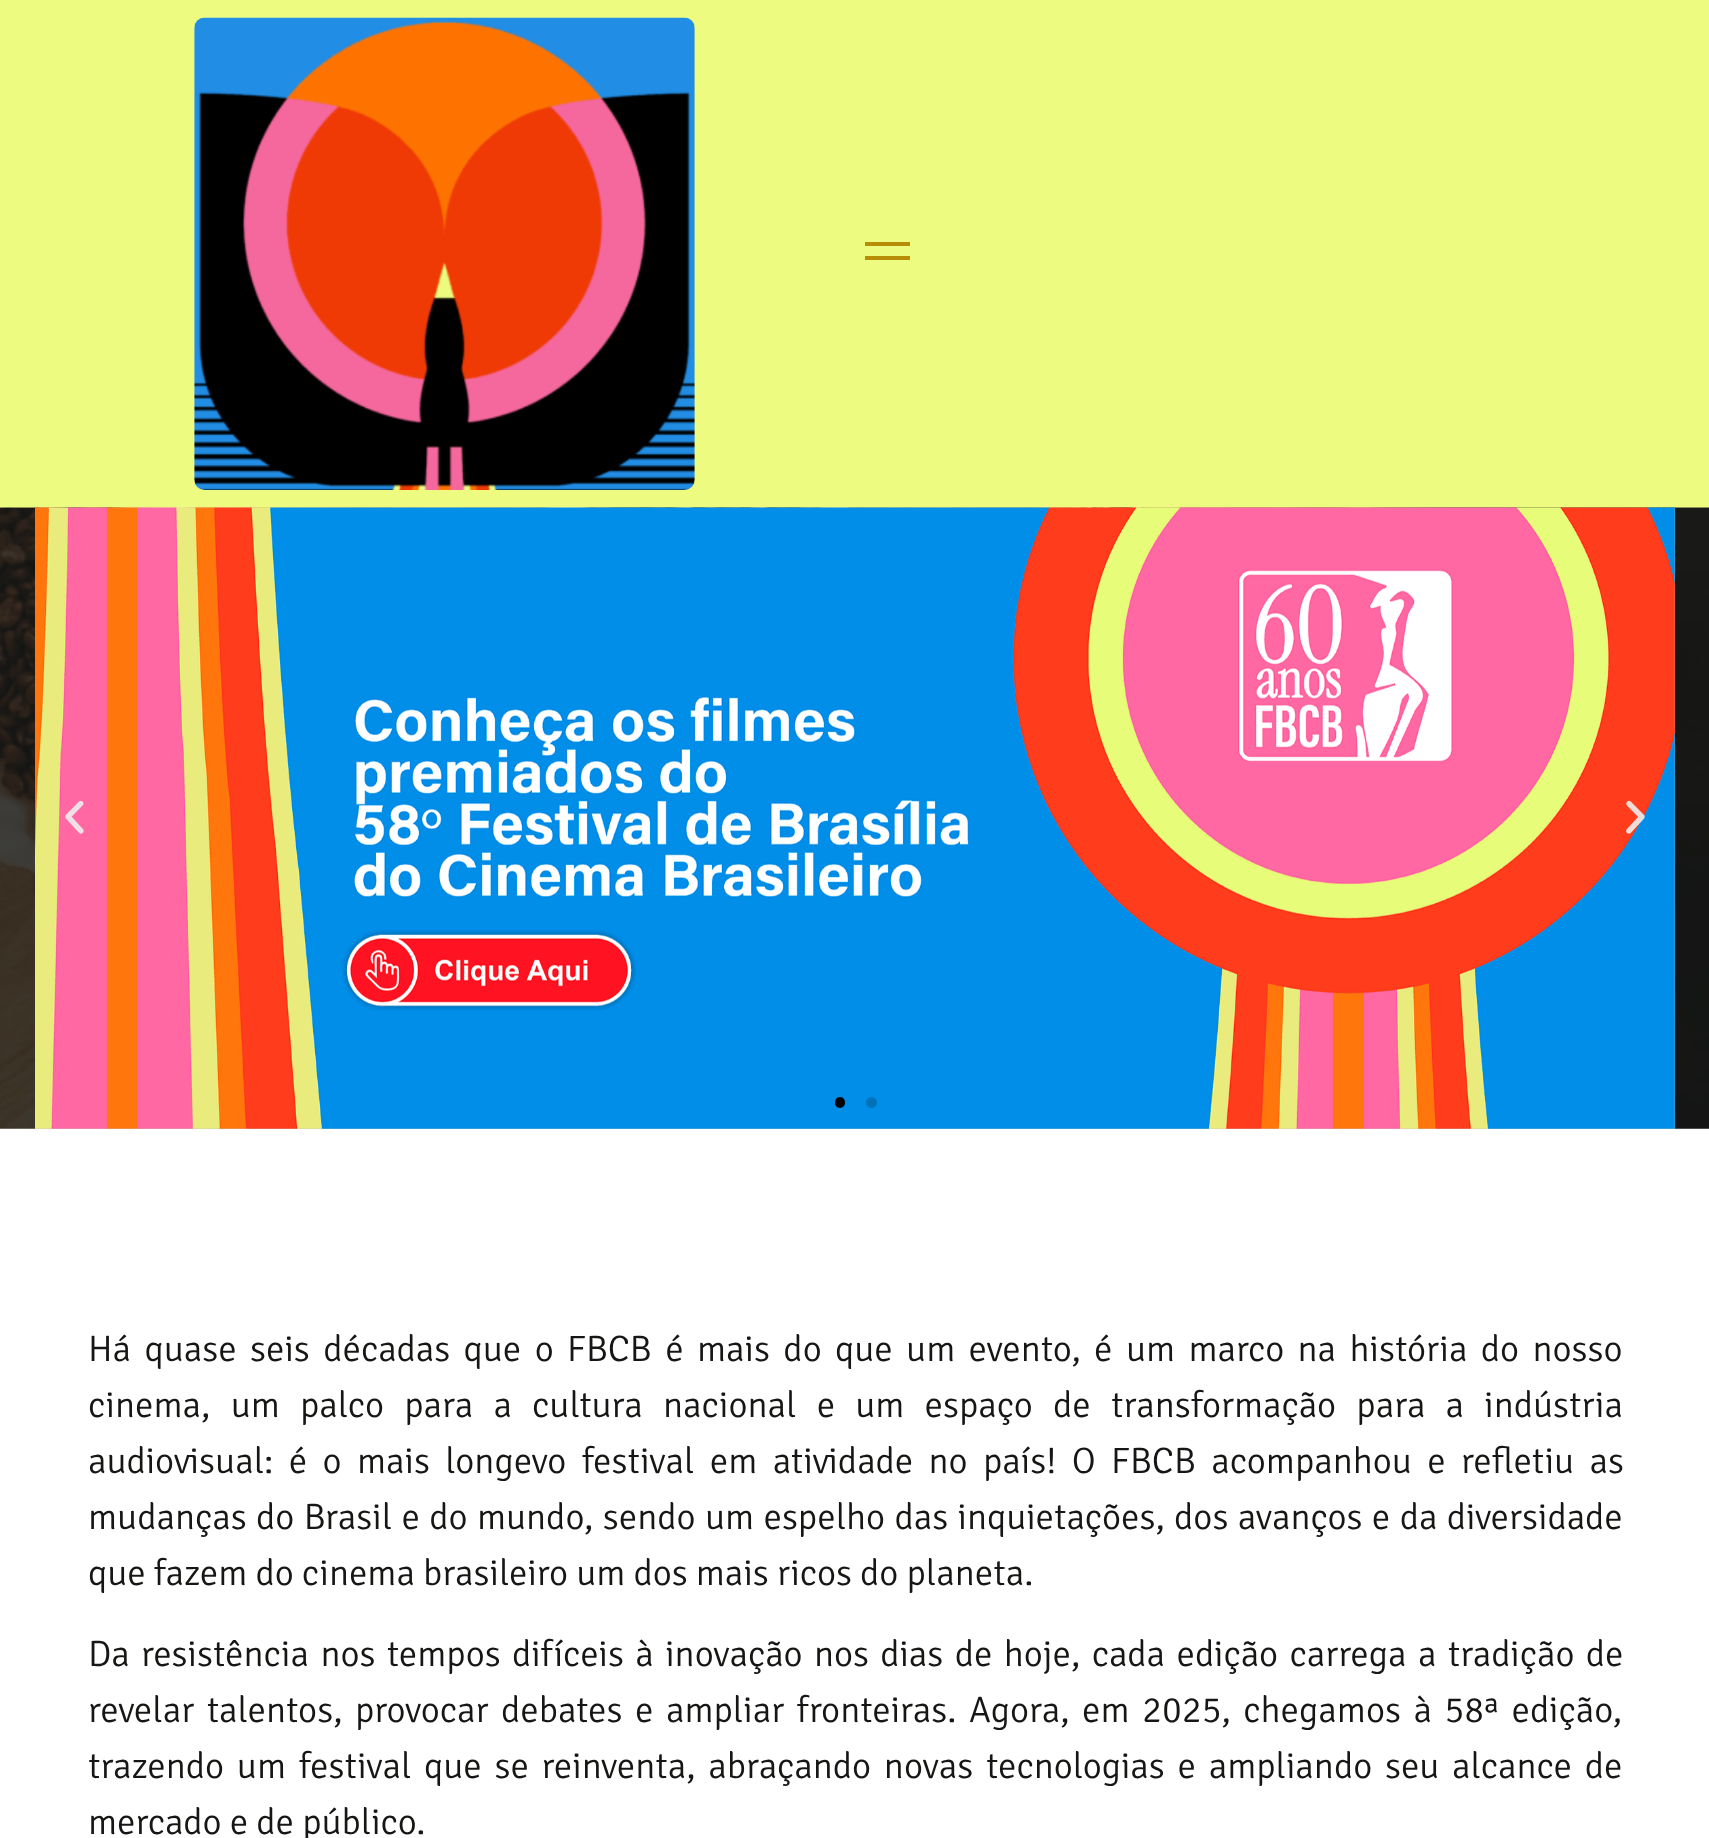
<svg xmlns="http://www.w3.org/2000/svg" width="1709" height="1838">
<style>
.a{font:300 36.75px Signika;fill:#161614}
</style>
<rect width="100%" height="100%" fill="#fff"/>
<path fill="#edfb80" d="M0 0h1709v508H0z"/>
<image href="1.png" x="194" y="17" width="501" height="473"/>
<path fill="#b78d07" d="M865 242h45v4H865z"/>
<path fill="#b78d07" d="M865 256h45v4H865z"/>
<image href="2.png" x="0" y="507" width="1709" height="622"/>
<path fill="#bbb" d="M35 508h1640v621H35z"/>
<image href="3.png" x="35" y="507" width="1640" height="622"/>
<image href="4.png" x="65" y="800" width="19" height="34"/>
<image href="5.png" x="1626" y="800" width="19" height="34"/>
<rect fill="#000" x="835" y="1097" width="10" height="11" rx="5"/>
<circle fill="#0072ba" cx="871.5" cy="1102.5" r="5.5"/>
<text class="a" x="88" y="1361" word-spacing="5.25">Há quase seis décadas que o FBCB é mais do que um evento, é um marco na história do nosso</text>
<text class="a" x="88" y="1417" word-spacing="12.1">cinema, um palco para a cultura nacional e um espaço de transformação para a indústria</text>
<text class="a" x="88" y="1473" word-spacing="7.25">audiovisual: é o mais longevo festival em atividade no país! O FBCB acompanhou e refletiu as</text>
<text class="a" x="88" y="1529" word-spacing="1.25">mudanças do Brasil e do mundo, sendo um espelho das inquietações, dos avanços e da diversidade</text>
<text class="a" x="88" y="1585">que fazem do cinema brasileiro um dos mais ricos do planeta.</text>
<text class="a" x="88" y="1666" word-spacing="3.25">Da resistência nos tempos difíceis à inovação nos dias de hoje, cada edição carrega a tradição de</text>
<text class="a" x="88" y="1722" word-spacing="4.4">revelar talentos, provocar debates e ampliar fronteiras. Agora, em 2025, chegamos à 58ª edição,</text>
<text class="a" x="88" y="1778" word-spacing="4.6">trazendo um festival que se reinventa, abraçando novas tecnologias e ampliando seu alcance de</text>
<text class="a" x="88" y="1834">mercado e de público.</text>
</svg>
